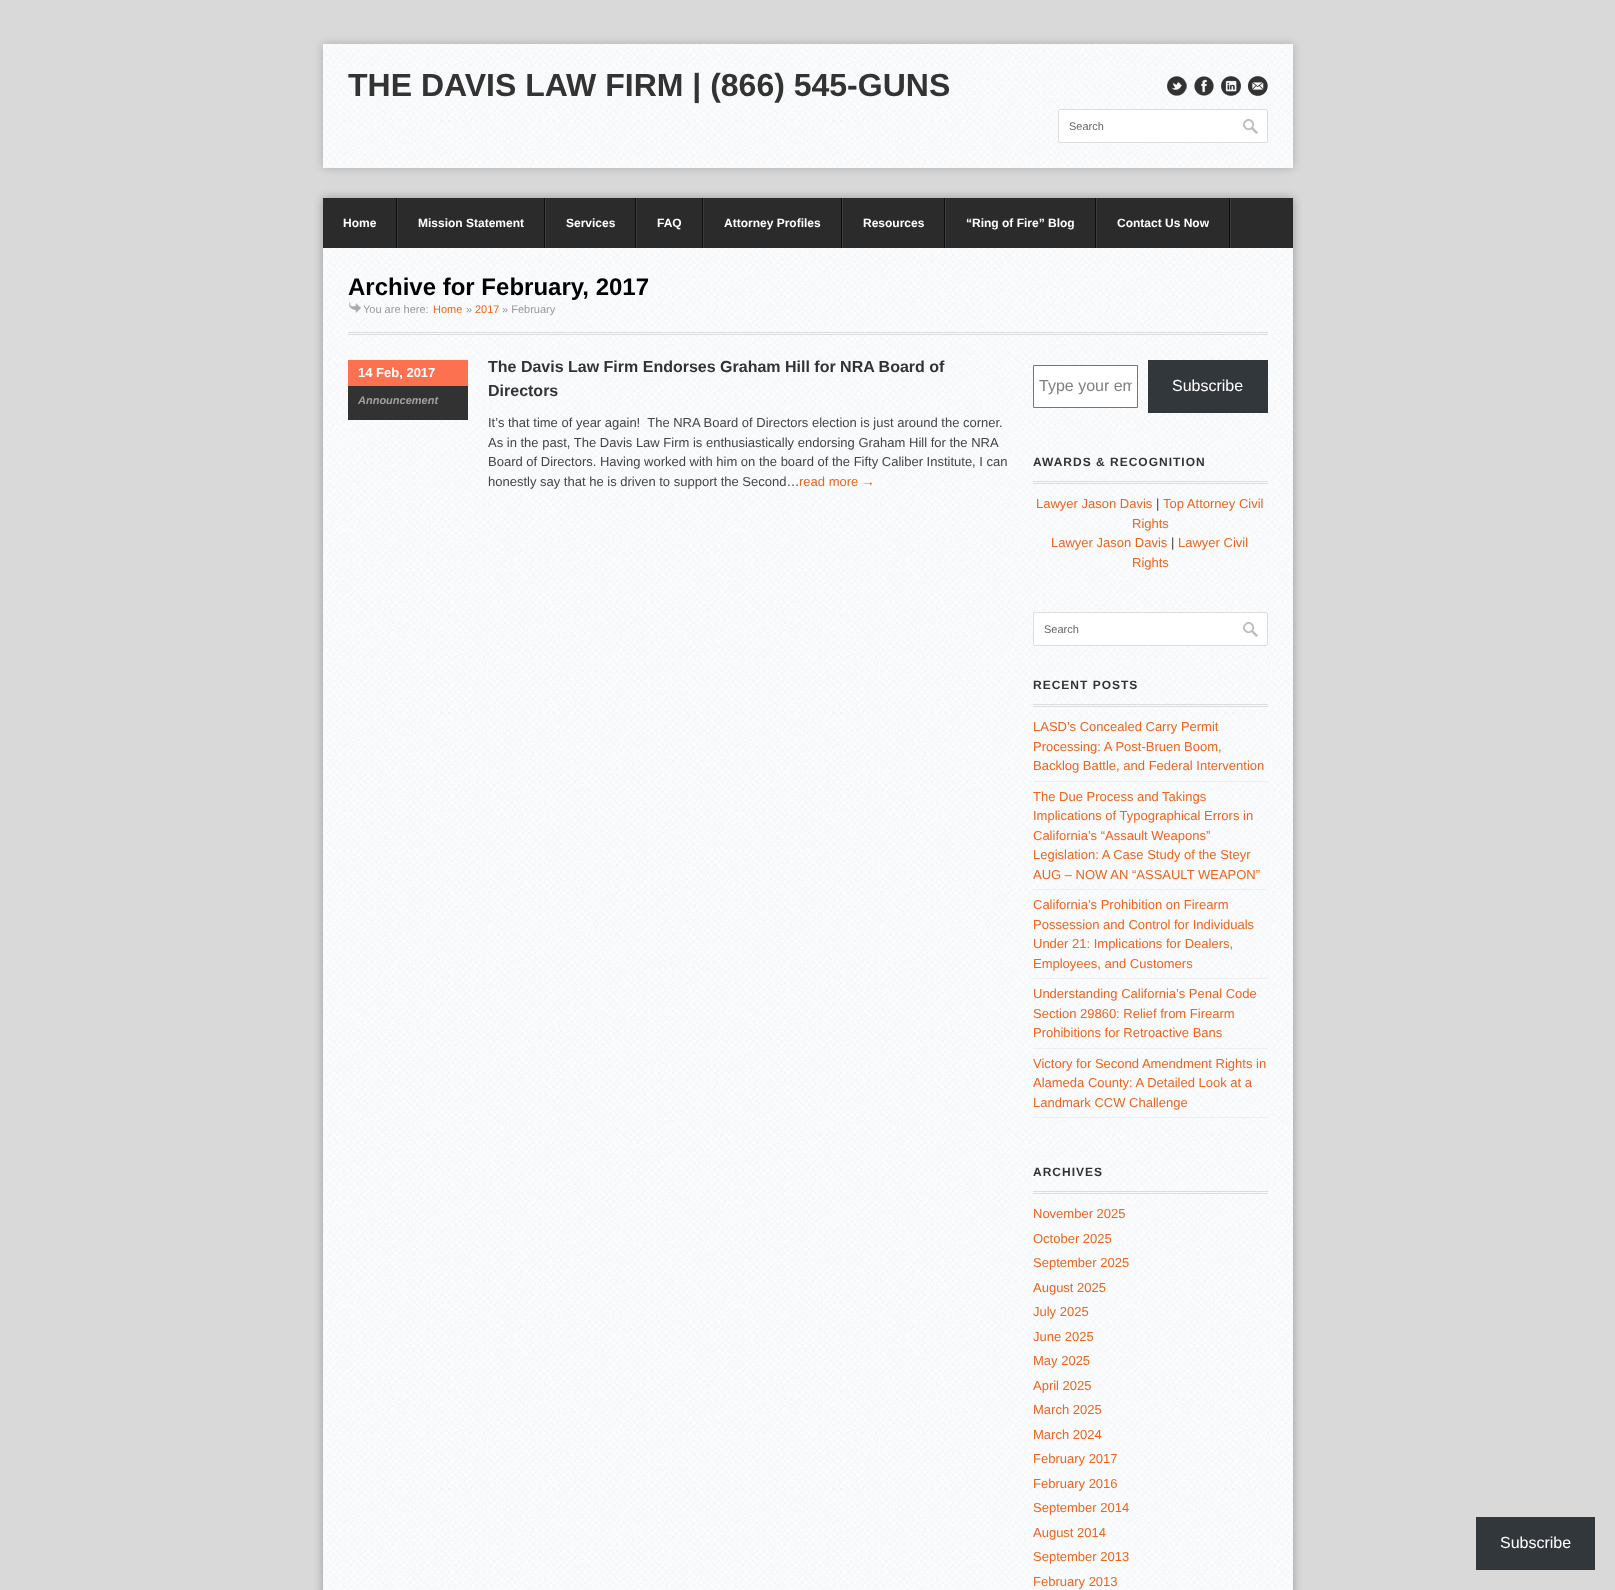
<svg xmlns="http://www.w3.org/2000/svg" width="1615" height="1590">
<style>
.a{font:bold 32px Liberation Sans;fill:#333}
.b{font:11px Liberation Sans;fill:#666}
.c{font:bold 12px Liberation Sans;fill:#fff}
.d{font:bold 24px Liberation Sans;fill:#000}
.e{font:11px Liberation Sans;fill:#999}
.f{font:11px Liberation Sans;fill:#ec651b}
.g{font:bold 13px Liberation Sans;fill:#fff}
.h{font:italic bold 11px Liberation Sans;fill:#a1a1a1}
.i{font:bold 16px Liberation Sans;fill:#333}
.j{font:13px Liberation Sans;fill:#444}
.k{font:13px Liberation Sans;fill:#ec651b}
.l{font:16px Liberation Sans;fill:#808080}
.m{font:16px Liberation Sans;fill:#fff}
.n{font:bold 12px Liberation Sans;letter-spacing:1px;fill:#333}
</style>
<defs>
<clipPath id="clip1"><path d="M1039 377h93v18H1039z"/></clipPath>
</defs>
<rect width="100%" height="100%" fill="#d9d9d9"/>
<path fill="#00000033" filter="blur(5px)" d="M323 44h970v124H323z"/>
<image href="1.png" x="323" y="44" width="970" height="124"/>
<image href="2.png" x="1167" y="76" width="20" height="20"/>
<image href="3.png" x="1194" y="76" width="20" height="20"/>
<image href="4.png" x="1221" y="76" width="20" height="20"/>
<image href="5.png" x="1248" y="76" width="20" height="20"/>
<rect fill="#fff" stroke="#ddd" x="1058.5" y="109.5" width="209" height="33" rx="1.5"/>
<image href="6.png" x="1243" y="119" width="15" height="15"/>
<path fill="#0000004d" filter="blur(5px)" d="M323 198h970v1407H323z"/>
<path fill="#2b2b2b" d="M323 198h970v50H323z"/>
<path fill="#3c3c3c" d="M1230 198h1v50H1230z"/>
<path fill="#0d0d0d" d="M396 198h1v50H396z"/>
<path fill="#0d0d0d" d="M544 198h1v50H544z"/>
<path fill="#3c3c3c" d="M397 198h1v50H397z"/>
<path fill="#0d0d0d" d="M635 198h1v50H635z"/>
<path fill="#3c3c3c" d="M545 198h1v50H545z"/>
<path fill="#0d0d0d" d="M702 198h1v50H702z"/>
<path fill="#3c3c3c" d="M636 198h1v50H636z"/>
<path fill="#0d0d0d" d="M841 198h1v50H841z"/>
<path fill="#3c3c3c" d="M703 198h1v50H703z"/>
<path fill="#0d0d0d" d="M944 198h1v50H944z"/>
<path fill="#3c3c3c" d="M842 198h1v50H842z"/>
<path fill="#0d0d0d" d="M1095 198h1v50H1095z"/>
<path fill="#3c3c3c" d="M945 198h1v50H945z"/>
<path fill="#0d0d0d" d="M1229 198h1v50H1229z"/>
<path fill="#3c3c3c" d="M1096 198h1v50H1096z"/>
<image href="7.png" x="323" y="248" width="970" height="1342"/>
<path fill="#ddd" d="M348 332h920v1H348z"/>
<path fill="#ddd" d="M348 334h920v1H348z"/>
<image href="8.png" x="349" y="301" width="12" height="12"/>
<path fill="#000000cc" d="M348 386h120v34H348z"/>
<path fill="#fc7150" d="M348 360h120v26H348z"/>
<path fill="#fff" stroke="#767676" d="M1033.5 365.5h104v42H1033.5z"/>
<path fill="#32373c" d="M1148 360h120v53H1148z"/>
<path fill="#ddd" d="M1033 481h235v1H1033z"/>
<path fill="#ddd" d="M1033 483h235v1H1033z"/>
<rect fill="#fff" stroke="#ddd" x="1033.5" y="612.5" width="234" height="33" rx="1.5"/>
<image href="6.png" x="1243" y="622" width="15" height="15"/>
<path fill="#ddd" d="M1033 704h235v1H1033z"/>
<path fill="#ddd" d="M1033 706h235v1H1033z"/>
<path fill="#eee" d="M1033 781h235v1H1033z"/>
<path fill="#eee" d="M1033 889h235v1H1033z"/>
<path fill="#eee" d="M1033 978h235v1H1033z"/>
<path fill="#eee" d="M1033 1048h235v1H1033z"/>
<path fill="#eee" d="M1033 1117h235v1H1033z"/>
<path fill="#ddd" d="M1033 1191h235v1H1033z"/>
<path fill="#ddd" d="M1033 1193h235v1H1033z"/>
<path fill="#32373c" d="M1476 1517h119v53H1476z"/>
<text class="a" x="348" y="96">THE DAVIS LAW FIRM | (866) 545-GUNS</text>
<text class="b" x="1069" y="130">Search</text>
<text class="c" x="343" y="227">Home</text>
<text class="c" x="418" y="227">Mission Statement</text>
<text class="c" x="566" y="227">Services</text>
<text class="c" x="657" y="227">FAQ</text>
<text class="c" x="724" y="227">Attorney Profiles</text>
<text class="c" x="863" y="227">Resources</text>
<text class="c" x="966" y="227">“Ring of Fire” Blog</text>
<text class="c" x="1117" y="227">Contact Us Now</text>
<text class="d" x="348" y="295">Archive for February, 2017</text>
<text class="e" x="363" y="313">You are here:</text>
<text class="f" x="433" y="313">Home</text>
<text class="e" x="466" y="313">»</text>
<text class="f" x="475" y="313">2017</text>
<text class="e" x="502" y="313">» February</text>
<text class="g" x="358" y="377">14 Feb, 2017</text>
<text class="h" x="358" y="404">Announcement</text>
<text class="i" x="488" y="372">The Davis Law Firm Endorses Graham Hill for NRA Board of</text>
<text class="i" x="488" y="396">Directors</text>
<text class="j" xml:space="preserve" x="488" y="427">It’s that time of year again!  The NRA Board of Directors election is just around the corner.</text>
<text class="j" x="488" y="447">As in the past, The Davis Law Firm is enthusiastically endorsing Graham Hill for the NRA</text>
<text class="j" x="488" y="466">Board of Directors. Having worked with him on the board of the Fifty Caliber Institute, I can</text>
<text class="j" x="488" y="486">honestly say that he is driven to support the Second…</text>
<text class="k" x="799" y="486">read more →</text>
<g clip-path="url(#clip1)">
<text class="l" x="1039" y="391">Type your em</text>
</g>
<text class="m" x="1172" y="391">Subscribe</text>
<text class="n" x="1033" y="466">AWARDS &amp; RECOGNITION</text>
<text class="k" x="1036" y="508">Lawyer Jason Davis</text>
<text class="j" x="1156" y="508">|</text>
<text class="k" x="1163" y="508">Top Attorney Civil</text>
<text class="k" x="1132" y="528">Rights</text>
<text class="k" x="1051" y="547">Lawyer Jason Davis</text>
<text class="j" x="1171" y="547">|</text>
<text class="k" x="1178" y="547">Lawyer Civil</text>
<text class="k" x="1132" y="567">Rights</text>
<text class="b" x="1044" y="633">Search</text>
<text class="n" x="1033" y="689">RECENT POSTS</text>
<text class="k" x="1033" y="731">LASD’s Concealed Carry Permit</text>
<text class="k" x="1033" y="751">Processing: A Post-Bruen Boom,</text>
<text class="k" x="1033" y="770">Backlog Battle, and Federal Intervention</text>
<text class="k" x="1033" y="801">The Due Process and Takings</text>
<text class="k" x="1033" y="820">Implications of Typographical Errors in</text>
<text class="k" x="1033" y="840">California’s “Assault Weapons”</text>
<text class="k" x="1033" y="859">Legislation: A Case Study of the Steyr</text>
<text class="k" x="1033" y="879">AUG – NOW AN “ASSAULT WEAPON”</text>
<text class="k" x="1033" y="909">California’s Prohibition on Firearm</text>
<text class="k" x="1033" y="929">Possession and Control for Individuals</text>
<text class="k" x="1033" y="948">Under 21: Implications for Dealers,</text>
<text class="k" x="1033" y="968">Employees, and Customers</text>
<text class="k" x="1033" y="998">Understanding California’s Penal Code</text>
<text class="k" x="1033" y="1018">Section 29860: Relief from Firearm</text>
<text class="k" x="1033" y="1037">Prohibitions for Retroactive Bans</text>
<text class="k" x="1033" y="1068">Victory for Second Amendment Rights in</text>
<text class="k" x="1033" y="1087">Alameda County: A Detailed Look at a</text>
<text class="k" x="1033" y="1107">Landmark CCW Challenge</text>
<text class="n" x="1033" y="1176">ARCHIVES</text>
<text class="k" x="1033" y="1218">November 2025</text>
<text class="k" x="1033" y="1243">October 2025</text>
<text class="k" x="1033" y="1267">September 2025</text>
<text class="k" x="1033" y="1292">August 2025</text>
<text class="k" x="1033" y="1316">July 2025</text>
<text class="k" x="1033" y="1341">June 2025</text>
<text class="k" x="1033" y="1365">May 2025</text>
<text class="k" x="1033" y="1390">April 2025</text>
<text class="k" x="1033" y="1414">March 2025</text>
<text class="k" x="1033" y="1439">March 2024</text>
<text class="k" x="1033" y="1463">February 2017</text>
<text class="k" x="1033" y="1488">February 2016</text>
<text class="k" x="1033" y="1512">September 2014</text>
<text class="k" x="1033" y="1537">August 2014</text>
<text class="k" x="1033" y="1561">September 2013</text>
<text class="k" x="1033" y="1586">February 2013</text>
<text class="m" x="1500" y="1548">Subscribe</text>
</svg>
